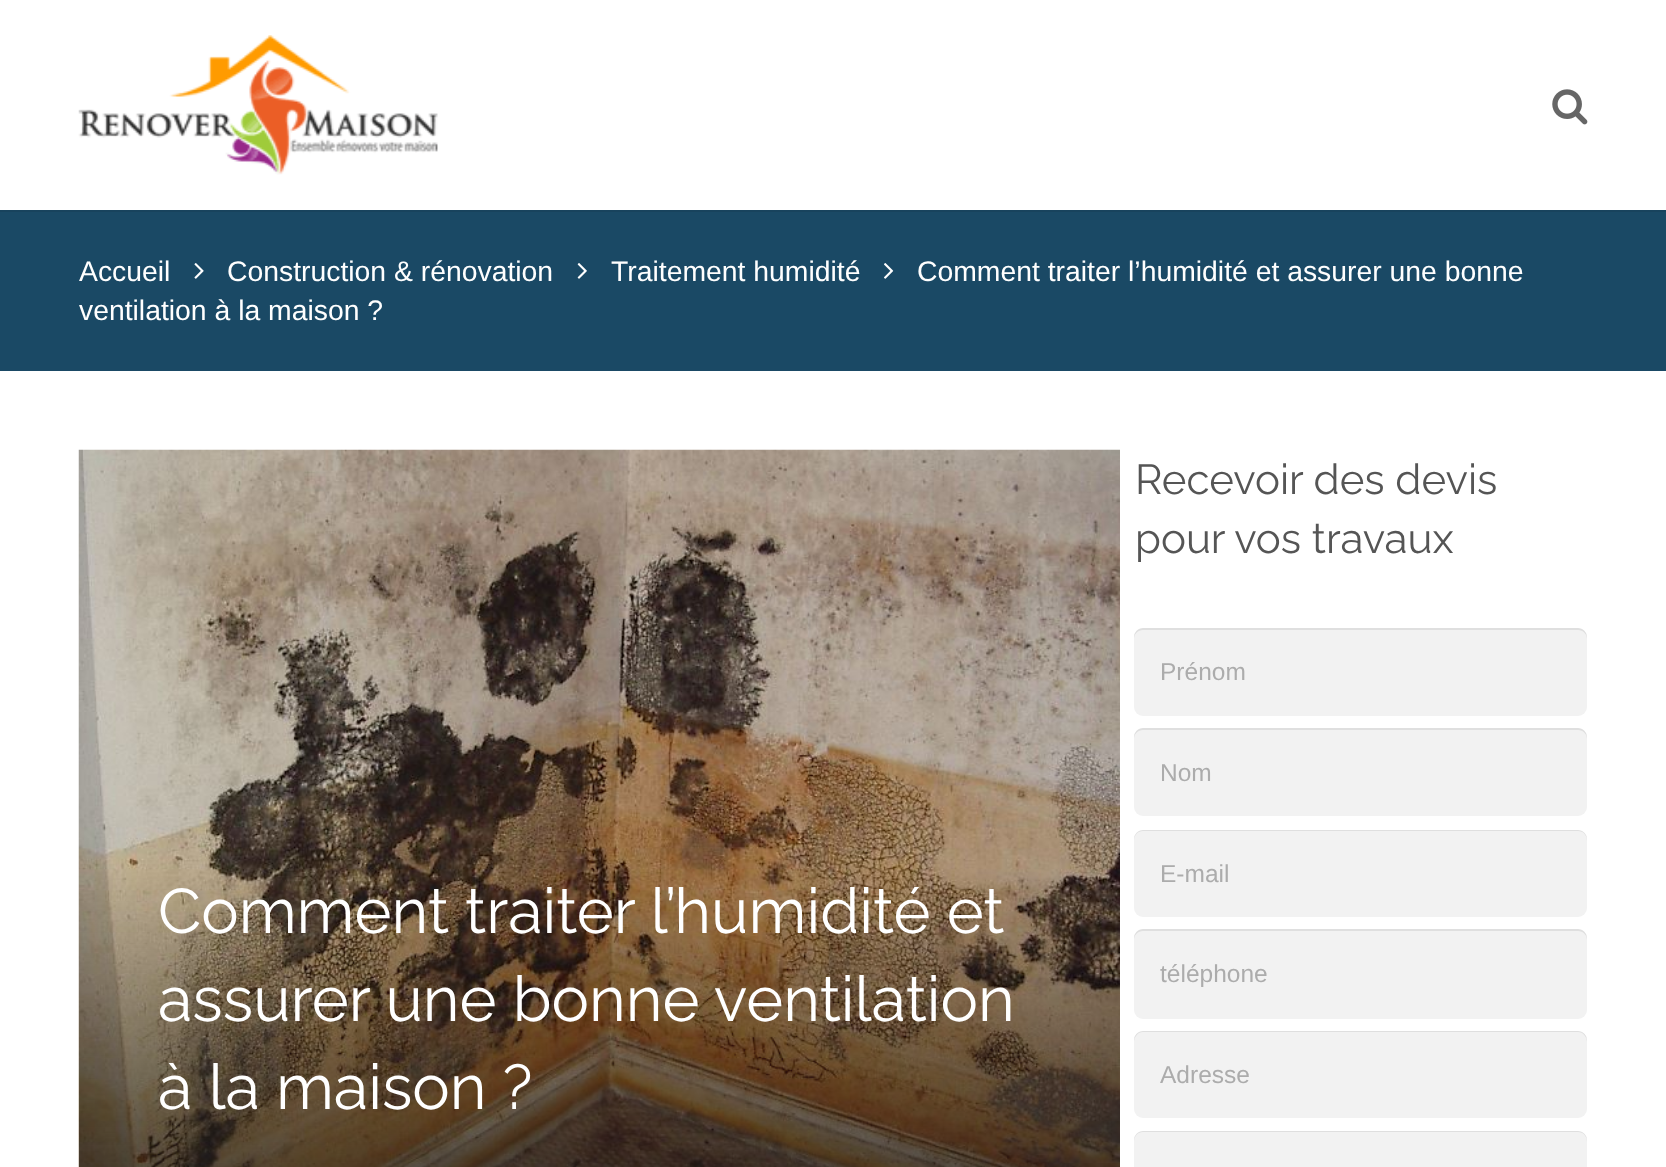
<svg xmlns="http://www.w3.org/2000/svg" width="1666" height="1167">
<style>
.a{font:28.35px Liberation Sans;fill:#fff}
.b{font:63px Raleway;fill:#fff}
.c{font:42px Raleway;fill:#555}
.d{font:24.5px Liberation Sans;fill:#acacac}
</style>
<rect width="100%" height="100%" fill="#fff"/>
<path fill="#18435d" d="M0 210h1666v2H0z"/>
<image href="1.png" x="78" y="35" width="360" height="140"/>
<image href="2.png" x="1552" y="89" width="36" height="36"/>
<path fill="#1a4965" d="M0 212h1666v159H0z"/>
<image href="3.png" x="194" y="263" width="10" height="16"/>
<image href="4.png" x="577" y="263" width="10" height="16"/>
<image href="5.png" x="884" y="263" width="10" height="16"/>
<image href="6.png" x="78" y="449" width="1042" height="718"/>
<rect fill="#f2f2f2" x="1134" y="628" width="453" height="88" rx="9"/>
<path fill="#00000014" d="M1143 630h435c5 0 9 4 9 9v-2c0-5-4-9-9-9h-435c-5 0-9 4-9 9v2c0-5 4-9 9-9z"/>
<rect fill="#f2f2f2" x="1134" y="728" width="453" height="88" rx="9"/>
<path fill="#00000014" d="M1143 730h435c5 0 9 4 9 9v-2c0-5-4-9-9-9h-435c-5 0-9 4-9 9v2c0-5 4-9 9-9z"/>
<rect fill="#f2f2f2" x="1134" y="830" width="453" height="87" rx="9"/>
<path fill="#00000014" d="M1143 831h435c5 0 9 4 9 10v-2c0-5-4-9-9-9h-435c-5 0-9 4-9 9v2c0-6 4-10 9-10z"/>
<rect fill="#f2f2f2" x="1134" y="929" width="453" height="90" rx="9"/>
<path fill="#00000014" d="M1143 931h435c5 0 9 4 9 9v-2c0-5-4-9-9-9h-435c-5 0-9 4-9 9v2c0-5 4-9 9-9z"/>
<rect fill="#f2f2f2" x="1134" y="1031" width="453" height="87" rx="9"/>
<path fill="#00000014" d="M1143 1032h435c5 0 9 5 9 10v-2c0-5-4-9-9-9h-435c-5 0-9 4-9 9v2c0-5 4-10 9-10z"/>
<rect fill="#f2f2f2" x="1134" y="1131" width="453" height="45" rx="9"/>
<path fill="#00000014" d="M1143 1132h435c5 0 9 4 9 10v-2c0-5-4-9-9-9h-435c-5 0-9 4-9 9v2c0-6 4-10 9-10z"/>
<text class="a" x="79" y="281">Accueil</text>
<text class="a" x="227" y="281">Construction &amp; rénovation</text>
<text class="a" x="611" y="281">Traitement humidité</text>
<text class="a" x="917" y="281">Comment traiter l’humidité et assurer une bonne</text>
<text class="a" x="79" y="320">ventilation à la maison ?</text>
<text class="b" x="158" y="933">Comment traiter l’humidité et</text>
<text class="b" x="158" y="1021">assurer une bonne ventilation</text>
<text class="b" x="158" y="1109">à la maison ?</text>
<text class="c" x="1135" y="494">Recevoir des devis</text>
<text class="c" x="1135" y="553">pour vos travaux</text>
<text class="d" x="1160" y="680">Prénom</text>
<text class="d" x="1160" y="781">Nom</text>
<text class="d" x="1160" y="882">E-mail</text>
<text class="d" x="1160" y="982">téléphone</text>
<text class="d" x="1160" y="1083">Adresse</text>
</svg>
